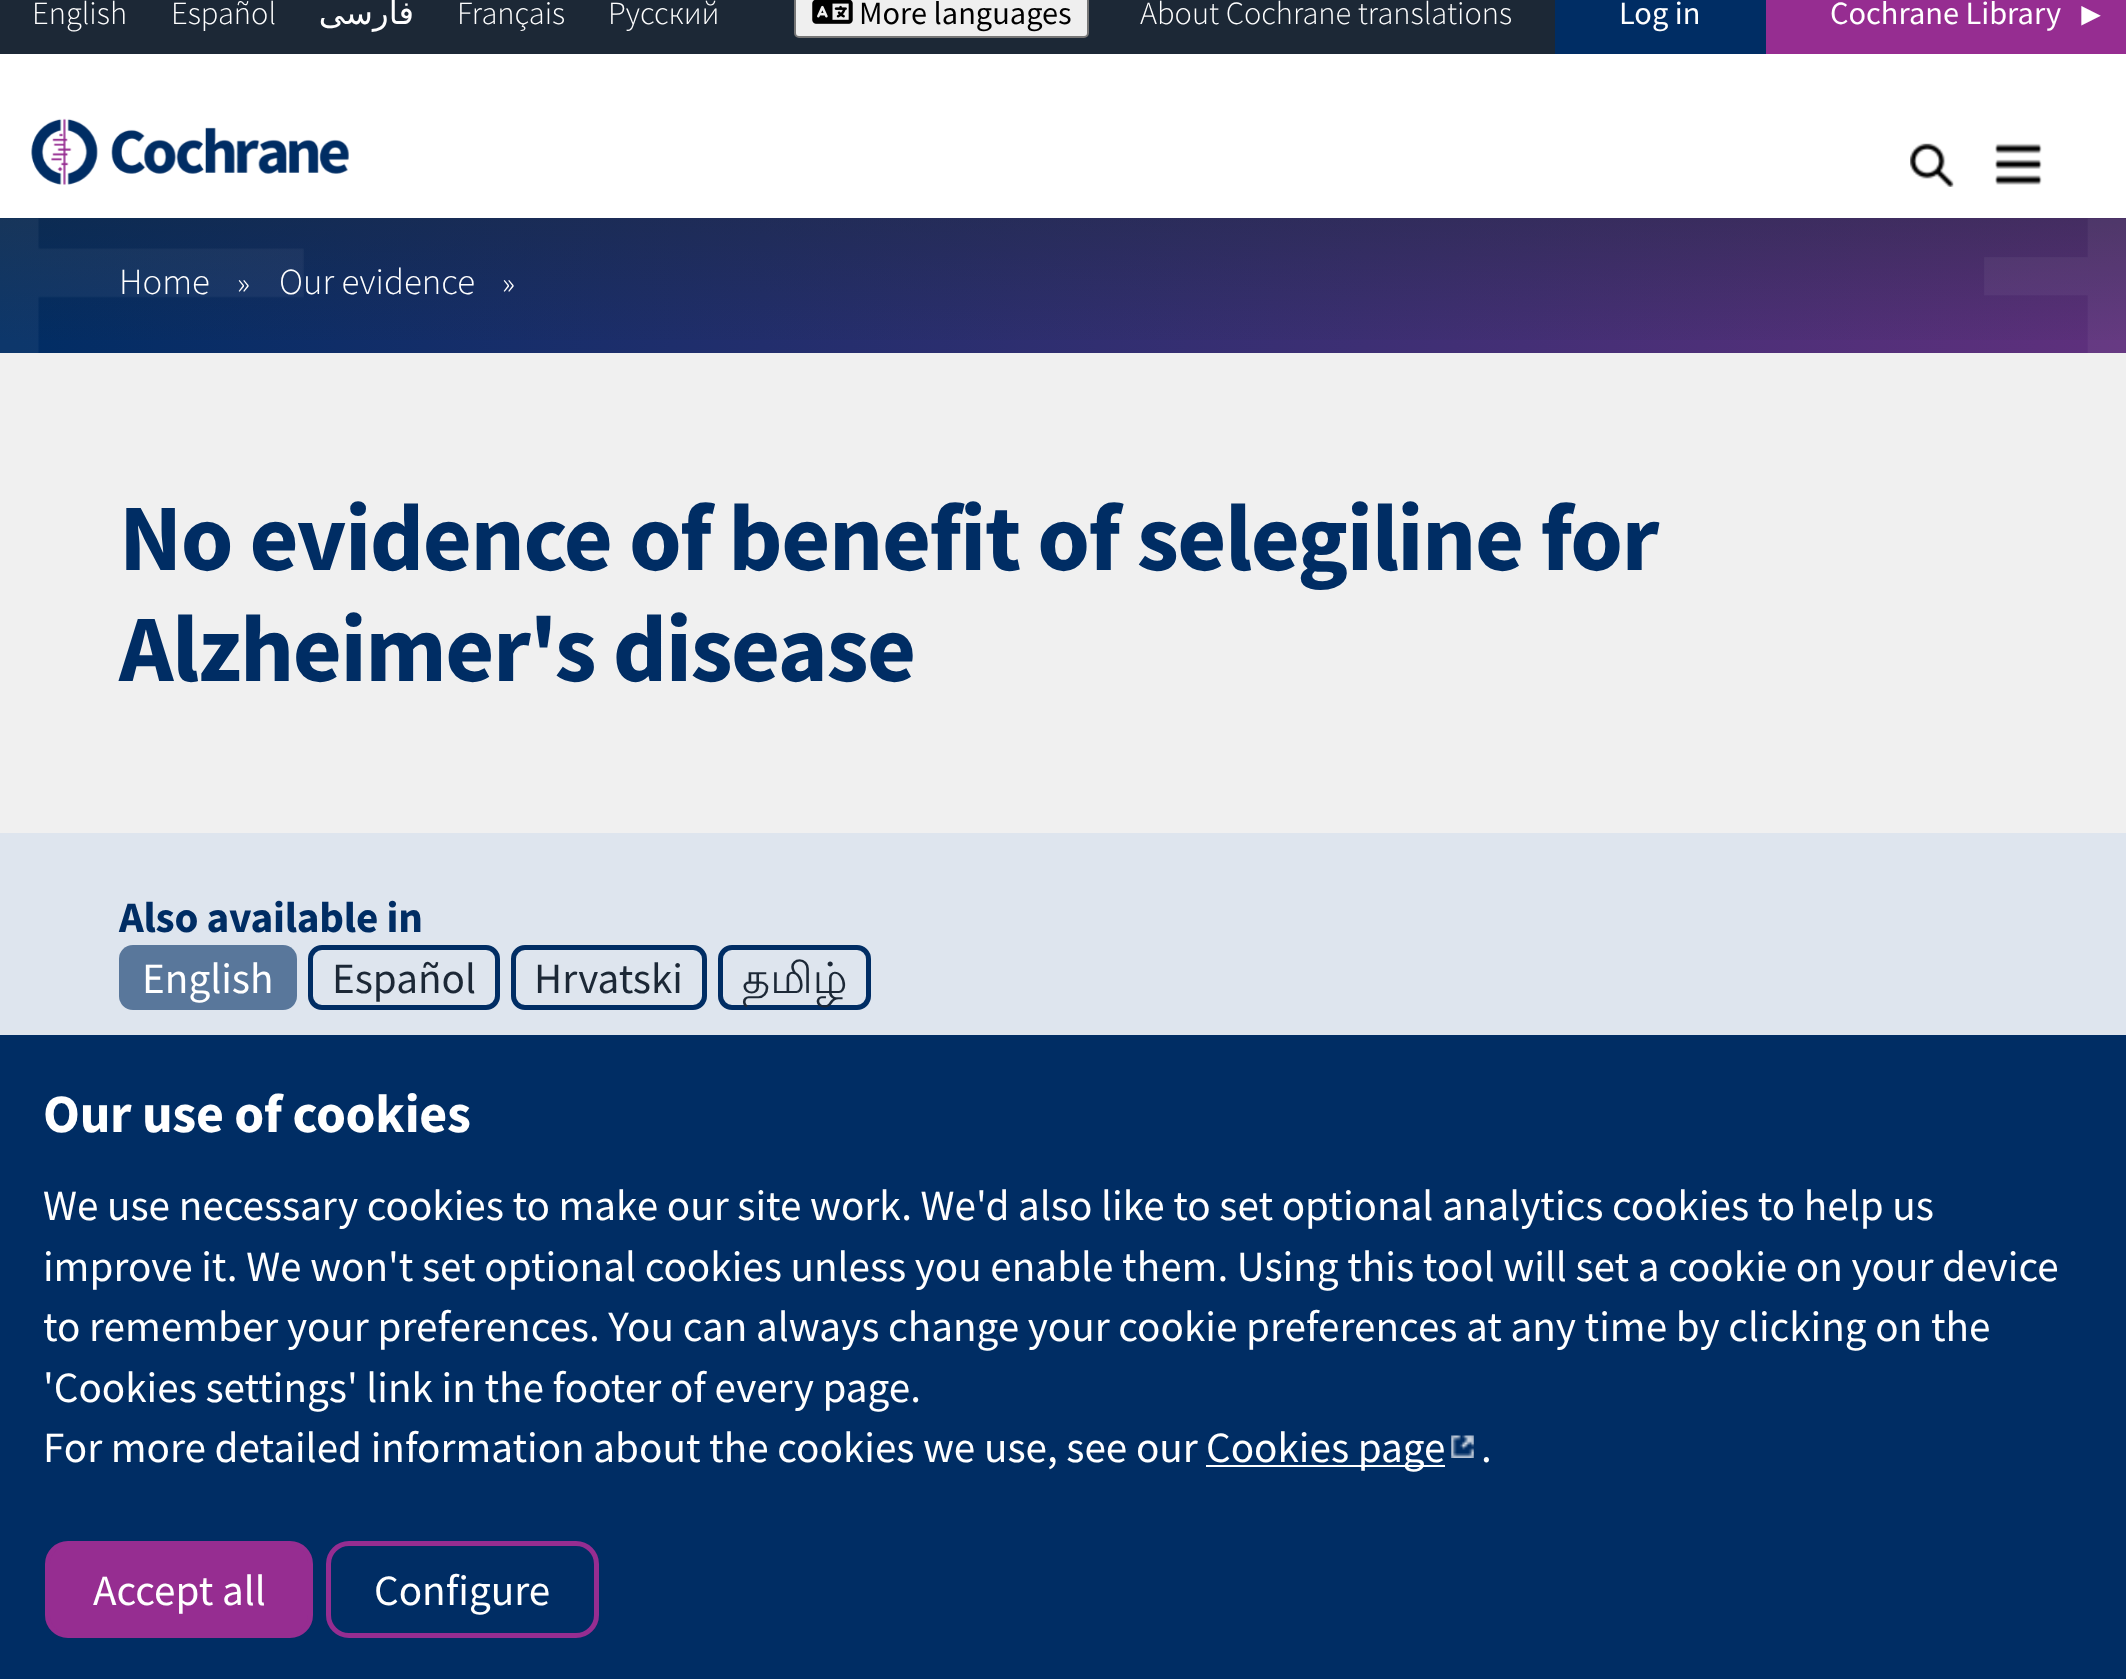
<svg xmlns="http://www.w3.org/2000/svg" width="2126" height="1679">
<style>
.a{font:300 32.4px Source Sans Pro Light;fill:#fff}
.b{font:32.4px DejaVu Sans;direction:rtl;fill:#fff}
.c{font:32.4px Source Sans Pro;fill:#000}
.d{font:32.4px Source Sans Pro;fill:#fff}
.e{font:32.4px Liberation Sans;fill:#fff}
.f{font:300 36.75px Source Sans Pro Light;fill:#fff}
.g{font:bold 95px Source Sans Pro;letter-spacing:-1.45px;fill:#002d64}
.h{font:bold 43.2px Source Sans Pro;letter-spacing:-0.25px;fill:#002d64}
.i{font:43.2px Source Sans Pro;fill:#fff}
.j{font:43.2px Source Sans Pro;fill:#1c2836}
.k{font:43.2px Lohit Tamil;fill:#1c2836}
.l{font:bold 54px Source Sans Pro;letter-spacing:-0.25px;fill:#fff}
</style>
<defs>
<linearGradient id="g1" gradientUnits="userSpaceOnUse" x1="0" y1="286" x2="2126" y2="286"><stop offset="0" stop-color="#002d64"/><stop offset="1" stop-color="#5f307d"/></linearGradient>
<linearGradient id="g2" gradientUnits="userSpaceOnUse" x1="1063" y1="2.2" x2="1063" y2="353"><stop offset="0" stop-color="#1c2836"/><stop offset="1" stop-color="#1c2836" stop-opacity="0"/></linearGradient>
</defs>
<rect width="100%" height="100%" fill="#f0f0f0"/>
<path fill="#1c2836" d="M0 0h1555v54H0z"/>
<path fill="#fff" d="M0 54h2126v164H0z"/>
<rect fill="#efefef" stroke="#767676" stroke-width="2" x="795" y="-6" width="293" height="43" rx="4"/>
<image href="1.png" x="812" y="0" width="41" height="24"/>
<path fill="#002d64" d="M1555 0h211v54H1555z"/>
<path fill="#962d91" d="M1766 0h360v54H1766z"/>
<image href="2.png" x="31" y="118" width="318" height="67"/>
<image href="3.png" x="1910" y="143" width="44" height="44"/>
<image href="4.png" x="1995" y="143" width="47" height="42"/>
<path fill="url(#g1)" d="M0 218h2126v135H0z"/>
<path fill="url(#g2)" d="M0 218h2126v122H0z"/>
<image href="5.png" x="0" y="218" width="304" height="135"/>
<image href="6.png" x="1984" y="218" width="142" height="135"/>
<path fill="#dee5ee" d="M0 833h2126v202H0z"/>
<rect fill="#59779b" x="119" y="945" width="178" height="65" rx="14"/>
<rect fill="none" stroke="#002d64" stroke-width="5" x="310.5" y="947.5" width="187" height="60" rx="11.5"/>
<rect fill="none" stroke="#002d64" stroke-width="5" x="513.5" y="947.5" width="191" height="60" rx="11.5"/>
<rect fill="none" stroke="#002d64" stroke-width="5" x="720.5" y="947.5" width="148" height="60" rx="11.5"/>
<path fill="#002d64" d="M0 1035h2126v644H0z"/>
<path fill="#fff" d="M1206 1465h239v2H1206z"/>
<image href="7.png" x="1451" y="1435" width="23" height="23"/>
<rect fill="#962d91" stroke="#962d91" stroke-width="5" x="47.5" y="1543.5" width="263" height="92" rx="20.5"/>
<rect fill="none" stroke="#962d91" stroke-width="5" x="328.5" y="1543.5" width="268" height="92" rx="20.5"/>
<text class="a" x="32" y="24">English</text>
<text class="a" x="171" y="24">Español</text>
<text class="b" x="414" y="24">فارسی</text>
<text class="a" x="457" y="24">Français</text>
<text class="a" x="608" y="24">Русский</text>
<text class="c" x="859" y="24">More languages</text>
<text class="a" x="1140" y="24">About Cochrane translations</text>
<text class="d" x="1619" y="24">Log in</text>
<text class="d" x="1830" y="24">Cochrane Library</text>
<text class="e" x="2075" y="25">►</text>
<text class="f" x="119" y="294">Home</text>
<text class="a" x="237" y="294">»</text>
<text class="f" x="279" y="294">Our evidence</text>
<text class="a" x="502" y="294">»</text>
<text class="g" x="119" y="570">No evidence of benefit of selegiline for</text>
<text class="g" x="119" y="681">Alzheimer's disease</text>
<text class="h" x="119" y="932">Also available in</text>
<text class="i" x="142" y="993">English</text>
<text class="j" x="332" y="993">Español</text>
<text class="j" x="534" y="993">Hrvatski</text>
<text class="k" x="742" y="993">தமிழ்</text>
<text class="l" x="43" y="1132">Our use of cookies</text>
<text class="i" x="43" y="1220">We use necessary cookies to make our site work. We'd also like to set optional analytics cookies to help us</text>
<text class="i" x="43" y="1281">improve it. We won't set optional cookies unless you enable them. Using this tool will set a cookie on your device</text>
<text class="i" x="43" y="1341">to remember your preferences. You can always change your cookie preferences at any time by clicking on the</text>
<text class="i" x="43" y="1402">'Cookies settings' link in the footer of every page.</text>
<text class="i" x="43" y="1462">For more detailed information about the cookies we use, see our</text>
<text class="i" x="1206" y="1462">Cookies page</text>
<text class="i" x="1481" y="1462">.</text>
<text class="i" x="93" y="1605">Accept all</text>
<text class="i" x="374" y="1605">Configure</text>
</svg>
